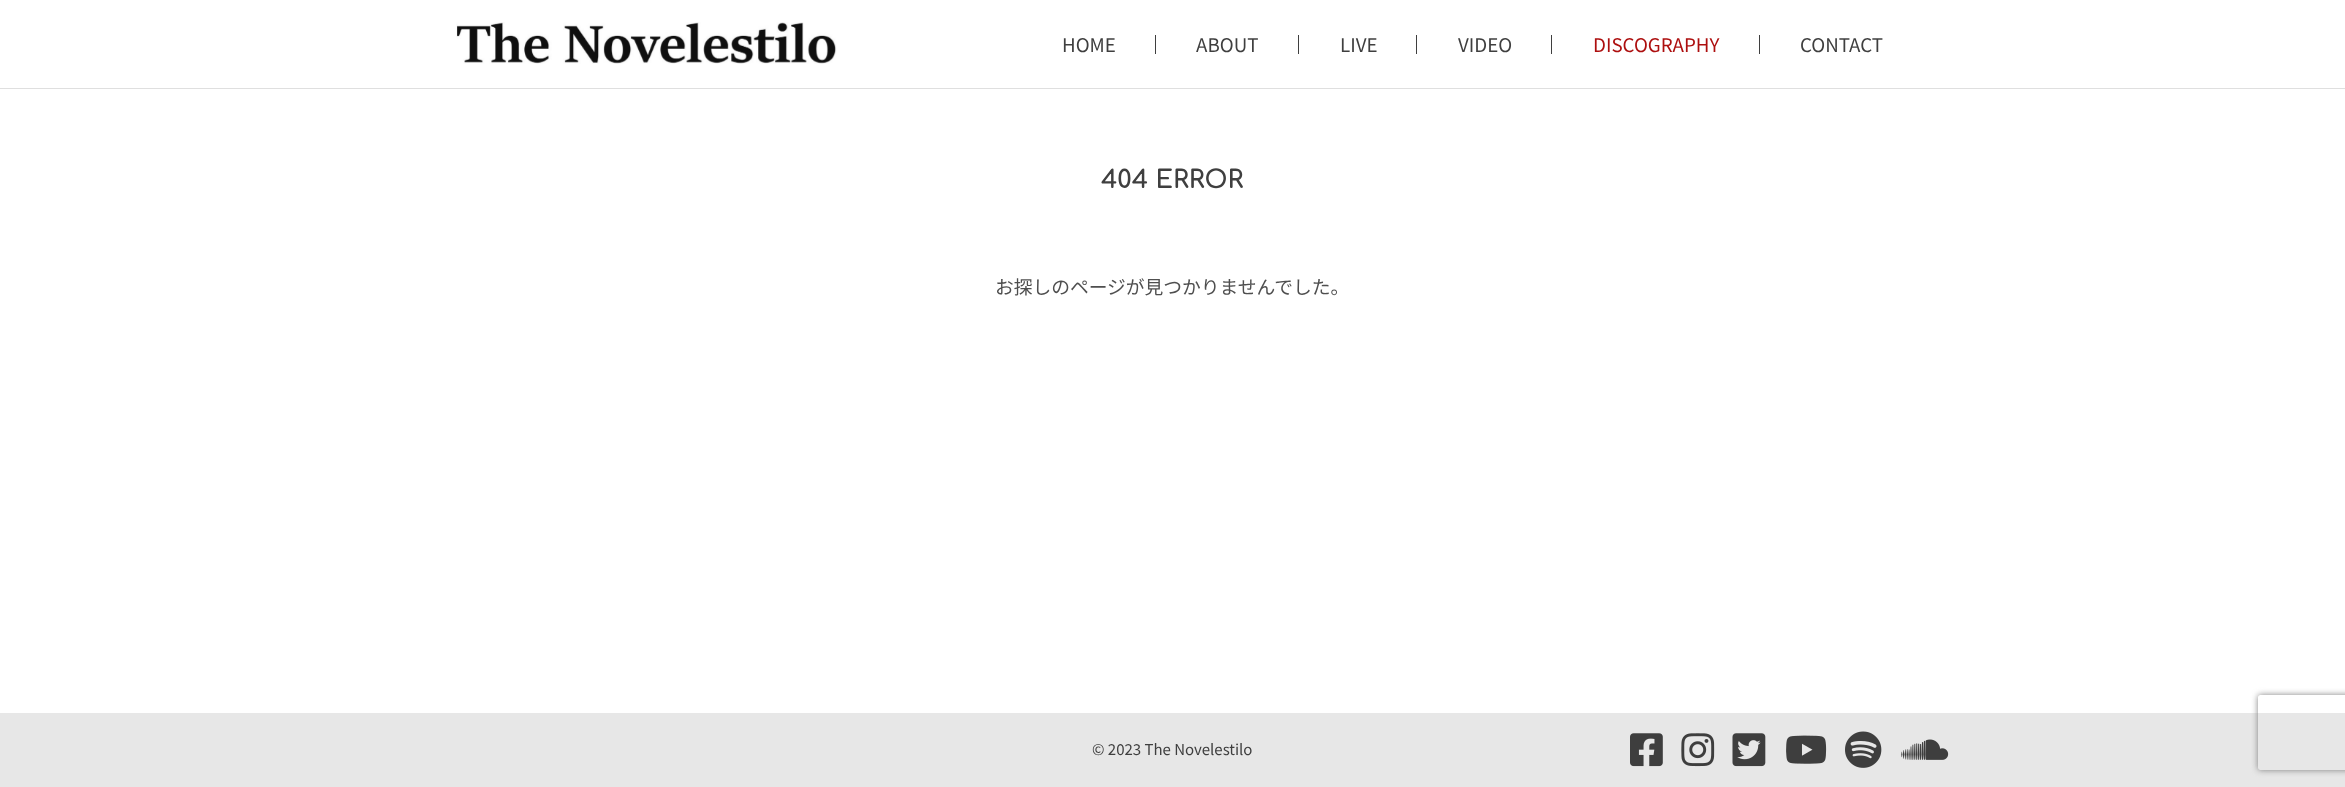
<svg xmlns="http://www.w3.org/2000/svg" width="2345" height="787">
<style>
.a{font:100 18.75px Noto Sans JP;fill:#3f3f3f}
.b{font:100 18.75px Noto Sans JP;fill:#ad0f0f}
.c{font:bold 25px Comfortaa;fill:#3f3f3f}
.d{font:100 18.75px Noto Sans JP;fill:#4f4f4f}
.e{font:100 15px Noto Sans JP;fill:#3f3f3f}
</style>
<defs>
<clipPath id="clip1"><path d="M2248 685h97v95h-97zm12.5 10h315c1.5 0 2.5 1 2.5 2.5v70c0 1.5-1 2.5-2.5 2.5h-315c-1.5 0-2.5-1-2.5-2.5v-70c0-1.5 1-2.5 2.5-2.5z" clip-rule="evenodd"/></clipPath>
</defs>
<rect width="100%" height="100%" fill="#fff"/>
<path fill="#dfdfdf" d="M0 88h2345v1H0z"/>
<image href="1.png" x="456" y="22" width="381" height="42"/>
<path fill="#3f3f3f" d="M1155 35h1v19H1155z"/>
<path fill="#3f3f3f" d="M1298 35h1v19H1298z"/>
<path fill="#3f3f3f" d="M1416 35h1v19H1416z"/>
<path fill="#3f3f3f" d="M1551 35h1v19H1551z"/>
<path fill="#3f3f3f" d="M1759 35h1v19H1759z"/>
<path fill="#e7e7e7" d="M0 713h2345v74H0z"/>
<image href="2.png" x="1630" y="733" width="33" height="34"/>
<image href="3.png" x="1681" y="733" width="34" height="34"/>
<image href="4.png" x="1732" y="733" width="34" height="34"/>
<image href="5.png" x="1786" y="735" width="41" height="29"/>
<image href="6.png" x="1845" y="731" width="37" height="37"/>
<image href="7.png" x="1901" y="739" width="48" height="21"/>
<g clip-path="url(#clip1)">
<rect fill="#808080" filter="blur(3px)" x="2258" y="695" width="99" height="75" rx="2.5"/>
</g>
<text class="a" x="1062" y="52">HOME</text>
<text class="a" x="1196" y="52">ABOUT</text>
<text class="a" x="1340" y="52">LIVE</text>
<text class="a" x="1458" y="52">VIDEO</text>
<text class="b" x="1593" y="52">DISCOGRAPHY</text>
<text class="a" x="1800" y="52">CONTACT</text>
<text class="c" x="1101" y="188">404 ERROR</text>
<text class="d" x="995" y="294">お探しのページが見つかりませんでした。</text>
<text class="e" x="1092" y="755">© 2023 The Novelestilo</text>
</svg>
